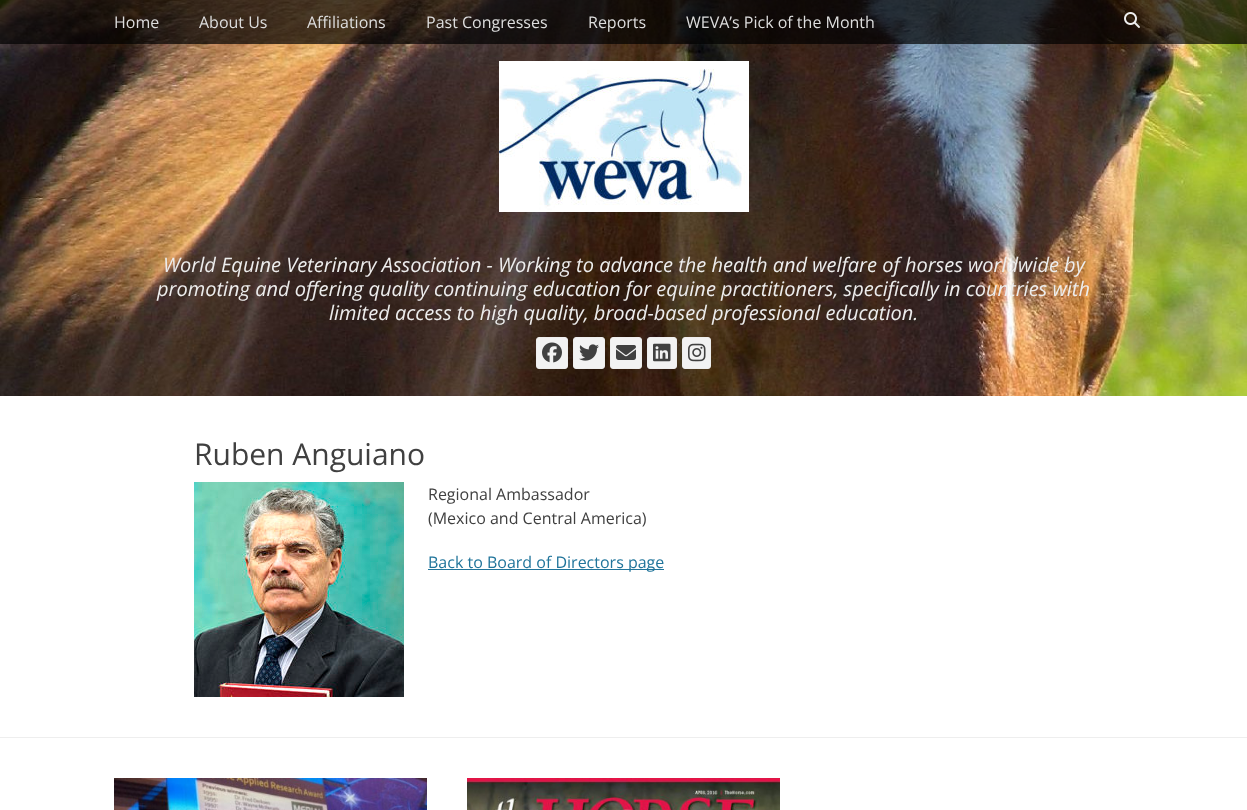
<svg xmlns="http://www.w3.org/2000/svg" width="1247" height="810">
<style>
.a{font:16px Open Sans;fill:#ddd}
.b{font:italic 20px Open Sans;fill:#ededed}
.c{font:30px Open Sans;fill:#404040}
.d{font:16px Open Sans;fill:#404040}
.e{font:16px Open Sans;fill:#21759b}
</style>
<rect width="100%" height="100%" fill="#fff"/>
<image href="2.png" x="0" y="0" width="1247" height="396"/>
<path fill="#000000b3" d="M0 0h1247v44H0z"/>
<image href="1.png" x="1124" y="12" width="16" height="16"/>
<image href="3.png" x="499" y="61" width="250" height="151"/>
<rect fill="#f2f2f2" stroke="#eee" x="536.5" y="337.5" width="31" height="31" rx="2.5"/>
<image href="4.png" x="542" y="342" width="20" height="21"/>
<rect fill="#f2f2f2" stroke="#eee" x="573.5" y="337.5" width="31" height="31" rx="2.5"/>
<image href="5.png" x="579" y="344" width="20" height="17"/>
<rect fill="#f2f2f2" stroke="#eee" x="610.5" y="337.5" width="31" height="31" rx="2.5"/>
<image href="6.png" x="616" y="345" width="20" height="15"/>
<rect fill="#f2f2f2" stroke="#eee" x="647.5" y="337.5" width="29" height="31" rx="2.5"/>
<image href="7.png" x="653" y="343" width="18" height="19"/>
<rect fill="#f2f2f2" stroke="#eee" x="682.5" y="337.5" width="28" height="31" rx="2.5"/>
<image href="8.png" x="688" y="343" width="18" height="19"/>
<image href="9.png" x="194" y="482" width="210" height="215"/>
<path fill="#21759b" d="M428 569h236v1H428z"/>
<path fill="#eee" d="M0 737h1247v1H0z"/>
<image href="10.png" x="114" y="778" width="313" height="32"/>
<image href="11.png" x="467" y="778" width="313" height="32"/>
<text class="a" x="114" y="28">Home</text>
<text class="a" x="199" y="28">About Us</text>
<text class="a" x="307" y="28">Affiliations</text>
<text class="a" x="426" y="28">Past Congresses</text>
<text class="a" x="588" y="28">Reports</text>
<text class="a" x="686" y="28">WEVA’s Pick of the Month</text>
<text class="b" x="163" y="272">World Equine Veterinary Association - Working to advance the health and welfare of horses worldwide by</text>
<text class="b" x="157" y="296">promoting and offering quality continuing education for equine practitioners, specifically in countries with</text>
<text class="b" x="329" y="320">limited access to high quality, broad-based professional education.</text>
<text class="c" x="194" y="465">Ruben Anguiano</text>
<text class="d" x="428" y="500">Regional Ambassador</text>
<text class="d" x="428" y="524">(Mexico and Central America)</text>
<text class="e" x="428" y="568">Back to Board of Directors page</text>
</svg>
